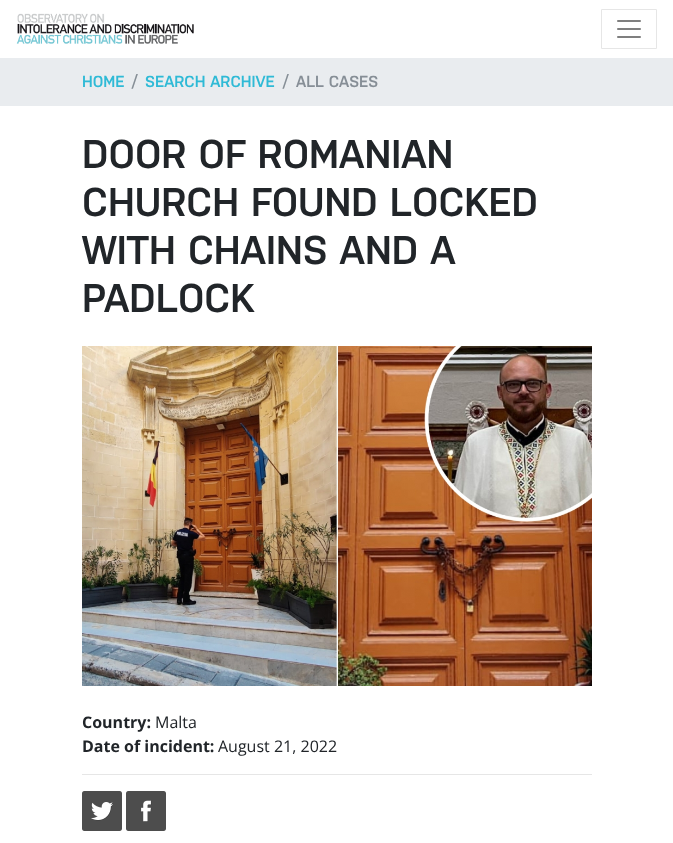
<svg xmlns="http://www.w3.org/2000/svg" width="673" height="843">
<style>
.a{font:600 16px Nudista;fill:#2fbad6}
.b{font:600 16px Nudista;fill:#868e96}
.c{font:600 40px Nudista;fill:#212529}
.d{font:bold 16px Open Sans;fill:#212529}
.e{font:16px Open Sans;fill:#212529}
</style>
<rect width="100%" height="100%" fill="#fff"/>
<image href="1.png" x="16" y="13" width="178" height="31"/>
<path fill="none" stroke="#e6e6e6" d="M601.5 9.5h55v39H601.5z"/>
<image href="2.png" x="617" y="20" width="24" height="18"/>
<path fill="#e9ecef" d="M0 58h673v48H0z"/>
<image href="3.png" x="82" y="346" width="510" height="340"/>
<path fill="#e6e6e6" d="M82 774h510v1H82z"/>
<image href="4.png" x="82" y="791" width="40" height="40"/>
<image href="5.png" x="126" y="791" width="40" height="40"/>
<text class="a" x="82" y="87">HOME</text>
<text class="b" x="132" y="87">/</text>
<text class="a" x="145" y="87">SEARCH ARCHIVE</text>
<text class="b" x="283" y="87">/</text>
<text class="b" x="296" y="87">ALL CASES</text>
<text class="c" x="82" y="168">DOOR OF ROMANIAN</text>
<text class="c" x="82" y="216">CHURCH FOUND LOCKED</text>
<text class="c" x="82" y="264">WITH CHAINS AND A</text>
<text class="c" x="82" y="312">PADLOCK</text>
<text class="d" x="82" y="728">Country:</text>
<text class="e" x="155" y="728">Malta</text>
<text class="d" x="82" y="752">Date of incident:</text>
<text class="e" x="218" y="752">August 21, 2022</text>
</svg>
